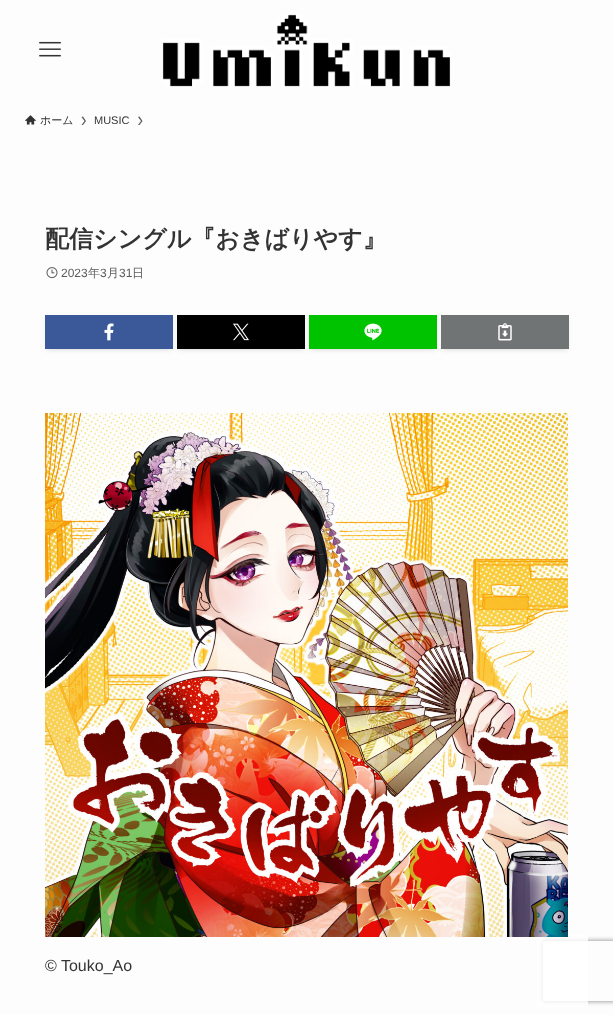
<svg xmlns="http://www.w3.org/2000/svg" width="613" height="1015">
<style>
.a{font:500 11px WenQuanYi Zen Hei;fill:#333}
.b{font:11px Liberation Sans;fill:#333}
.c{font:bold 24px WenQuanYi Zen Hei;fill:#333}
.d{font:12px Liberation Sans;fill:#5c5c5c}
.e{font:500 12px WenQuanYi Zen Hei;fill:#5c5c5c}
.f{font:16px Liberation Sans;fill:#333}
</style>
<defs>
<clipPath id="clip1"><path d="M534 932h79v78h-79zm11 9h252c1 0 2 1 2 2v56c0 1-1 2-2 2h-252c-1 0-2-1-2-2v-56c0-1 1-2 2-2z" clip-rule="evenodd"/></clipPath>
</defs>
<rect width="100%" height="100%" fill="#fdfdfd"/>
<image href="1.png" x="39" y="41" width="22" height="16"/>
<image href="2.png" x="162" y="14" width="289" height="73"/>
<image href="3.png" x="25" y="115" width="11" height="10"/>
<path fill="#5b5b5b" d="M83 116.5l-1.5 .5l3 4l-3 4h1.5l3-4z"/>
<path fill="#5b5b5b" d="M139.5 116.5l-1.5 .5l3 4l-3 4h1.5l3-4z"/>
<g clip-path="url(#clip1)">
<rect fill="#808080" filter="blur(2.5px)" x="543" y="941" width="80" height="60" rx="2"/>
</g>
<path fill="#ffffffcc" d="M537 935h51v72H537z"/>
<image href="4.png" x="46" y="267" width="12" height="12"/>
<path fill="#0000001a" filter="blur(2px)" d="M49 323h120v26H49z"/>
<path fill="#0000000d" filter="blur(2px)" d="M45 317h128v34H45z"/>
<path fill="#3b5998" d="M45 315h128v34H45z"/>
<image href="5.png" x="104" y="323" width="10" height="18"/>
<path fill="#0000001a" filter="blur(2px)" d="M181 323h120v26H181z"/>
<path fill="#0000000d" filter="blur(2px)" d="M177 317h128v34H177z"/>
<path fill="#000" d="M177 315h128v34H177z"/>
<image href="6.png" x="233" y="323" width="16" height="18"/>
<path fill="#0000001a" filter="blur(2px)" d="M313 323h120v26H313z"/>
<path fill="#0000000d" filter="blur(2px)" d="M309 317h128v34H309z"/>
<path fill="#00c300" d="M309 315h128v34H309z"/>
<image href="7.png" x="364" y="323" width="18" height="18"/>
<path fill="#0000001a" filter="blur(2px)" d="M445 323h120v26H445z"/>
<path fill="#0000000d" filter="blur(2px)" d="M441 317h128v34H441z"/>
<path fill="#717475" d="M441 315h128v34H441z"/>
<image href="8.png" x="498" y="323" width="14" height="18"/>
<image href="9.png" x="45" y="413" width="523" height="524"/>
<text class="a" x="40" y="124">ホーム</text>
<text class="b" x="94" y="124">MUSIC</text>
<text class="c" x="45" y="247">配信シングル『おきばりやす』</text>
<text class="d" x="61" y="277">2023</text>
<text class="e" x="88" y="277">年</text>
<text class="d" x="100" y="277">3</text>
<text class="e" x="107" y="277">月</text>
<text class="d" x="119" y="277">31</text>
<text class="e" x="132" y="277">日</text>
<text class="f" x="45" y="971">© Touko_Ao</text>
</svg>
